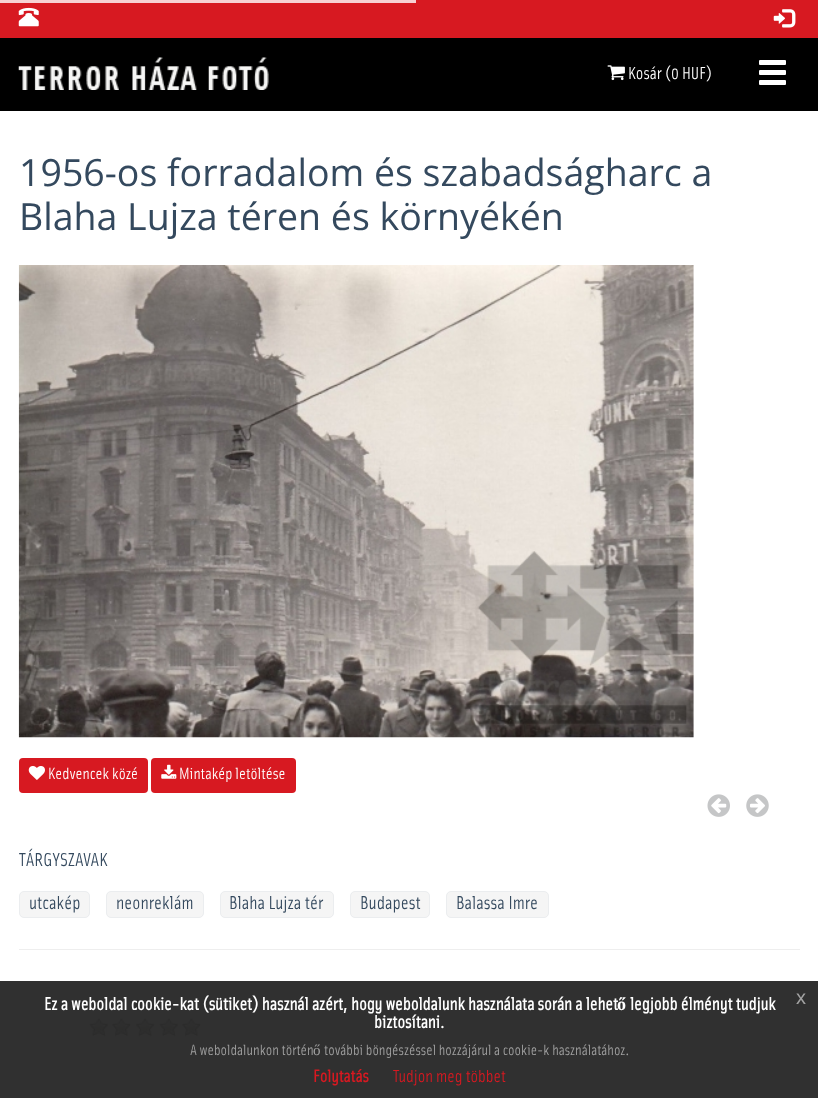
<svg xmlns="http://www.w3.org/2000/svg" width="818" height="1098">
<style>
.a{font:17.5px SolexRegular;fill:#fff}
.b{font:37.5px Open Sans;fill:#34495e}
.c{font:16.25px SolexRegular;fill:#fff}
.d{font:18.75px SolexRegular;fill:#34495e}
.e{font:bold 18px SolexRegular;fill:#fff}
.f{font:bold 18px Liberation Serif;fill:#fff}
.g{font:20px Liberation Sans;fill:#a2a2a2}
.h{font:15px SolexRegular;fill:#a2a2a2}
.i{font:15px Liberation Serif;fill:#a2a2a2}
.j{font:bold 17.5px SolexRegular;fill:#d71921}
.k{font:17.5px SolexRegular;fill:#d71921}
</style>
<rect width="100%" height="100%" fill="#fff"/>
<path fill="#d71921" d="M0 0h818v38H0z"/>
<path fill="#f7d1d3" d="M0 0h416v3H0z"/>
<path fill="#000" d="M0 38h818v73H0z"/>
<image href="1.png" x="18" y="7" width="21" height="20"/>
<image href="2.png" x="773" y="9" width="23" height="19"/>
<image href="3.png" x="18" y="57" width="251" height="33"/>
<image href="4.png" x="607" y="65" width="18" height="16"/>
<rect fill="#fff" x="759" y="60" width="27" height="5" rx="1"/>
<rect fill="#fff" x="759" y="70" width="27" height="5" rx="1"/>
<rect fill="#fff" x="759" y="80" width="27" height="5" rx="1"/>
<image href="5.png" x="18" y="265" width="676" height="473"/>
<rect fill="#d71921" x="19" y="758" width="129" height="35" rx="4"/>
<image href="6.png" x="28" y="766" width="17" height="14"/>
<rect fill="#d71921" x="151" y="758" width="145" height="35" rx="4"/>
<image href="7.png" x="161" y="764" width="16" height="15"/>
<image href="8.png" x="707" y="794" width="23" height="23"/>
<image href="9.png" x="746" y="794" width="23" height="23"/>
<rect fill="#f5f5f5" stroke="#ebedef" x="19.5" y="891.5" width="70" height="26" rx="4.5"/>
<rect fill="#f5f5f5" stroke="#ebedef" x="106.5" y="891.5" width="97" height="26" rx="4.5"/>
<rect fill="#f5f5f5" stroke="#ebedef" x="220.5" y="891.5" width="113" height="26" rx="4.5"/>
<rect fill="#f5f5f5" stroke="#ebedef" x="350.5" y="891.5" width="79" height="26" rx="4.5"/>
<rect fill="#f5f5f5" stroke="#ebedef" x="446.5" y="891.5" width="102" height="26" rx="4.5"/>
<path fill="#eee" d="M19 949h781v1H19z"/>
<image href="10.png" x="89" y="1017" width="20" height="20"/>
<image href="11.png" x="111" y="1017" width="20" height="20"/>
<image href="12.png" x="135" y="1017" width="20" height="20"/>
<image href="10.png" x="159" y="1017" width="20" height="20"/>
<image href="11.png" x="181" y="1017" width="20" height="20"/>
<path fill="#191919e6" d="M0 981h818v117H0z"/>
<text class="a" x="628" y="79">Kosár (0 HUF)</text>
<text class="b" x="19" y="186">1956-os forradalom és szabadságharc a</text>
<text class="b" x="19" y="230">Blaha Lujza téren és környékén</text>
<text class="c" x="48" y="779">Kedvencek közé</text>
<text class="c" x="179" y="779">Mintakép letöltése</text>
<text class="d" x="19" y="866">TÁRGYSZAVAK</text>
<text class="d" x="29" y="909">utcakép</text>
<text class="d" x="116" y="909">neonreklám</text>
<text class="d" x="229" y="909">Blaha Lujza tér</text>
<text class="d" x="360" y="909">Budapest</text>
<text class="d" x="456" y="909">Balassa Imre</text>
<text class="e" x="44" y="1010">Ez a weboldal cookie-kat (sütiket) használ azért, hogy weboldalunk használata során a lehet</text>
<text class="f" x="617" y="1010">ő</text>
<text class="e" x="630" y="1010">legjobb élményt tudjuk</text>
<text class="e" x="374" y="1028">biztosítani.</text>
<text class="g" x="796" y="1004">x</text>
<text class="h" x="190" y="1055">A weboldalunkon történ</text>
<text class="i" x="313" y="1055">ő</text>
<text class="h" x="324" y="1055">további böngészéssel hozzájárul a cookie-k használatához.</text>
<text class="j" x="313" y="1082">Folytatás</text>
<text class="k" x="393" y="1082">Tudjon meg többet</text>
</svg>
